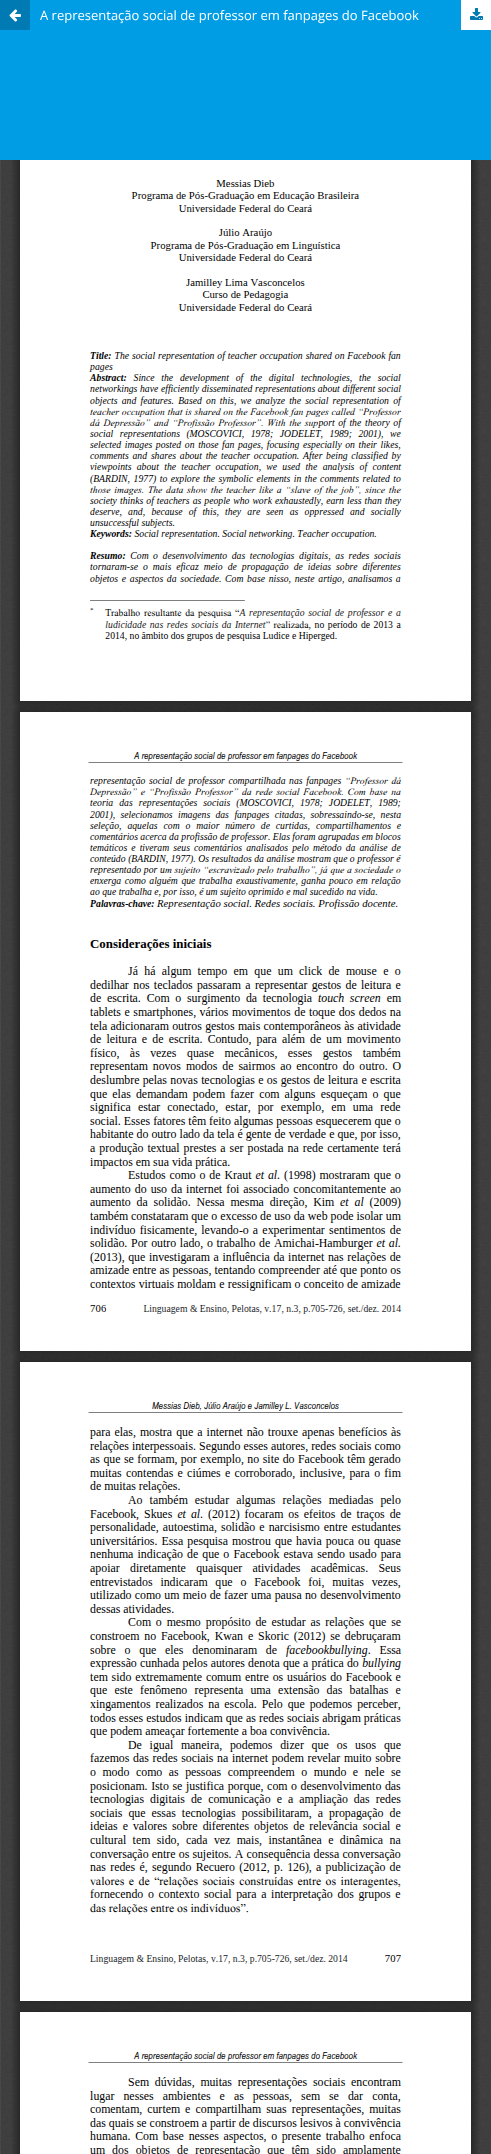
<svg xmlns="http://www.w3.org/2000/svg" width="491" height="2154">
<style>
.a{font:13px Open Sans;fill:#fff}
</style>
<rect width="100%" height="100%" fill="#fff"/>
<path fill="#009de5" d="M0 0h491v160H0z"/>
<path fill="#007ab2" d="M0 0h30v30H0z"/>
<image href="1.png" x="9" y="9" width="12" height="13"/>
<path fill="#fff" d="M461 0h30v30H461z"/>
<image href="2.png" x="470" y="8" width="13" height="12"/>
<image href="3.png" x="0" y="160" width="491" height="1994"/>
<text class="a" x="40" y="20">A representação social de professor em fanpages do Facebook</text>
</svg>
